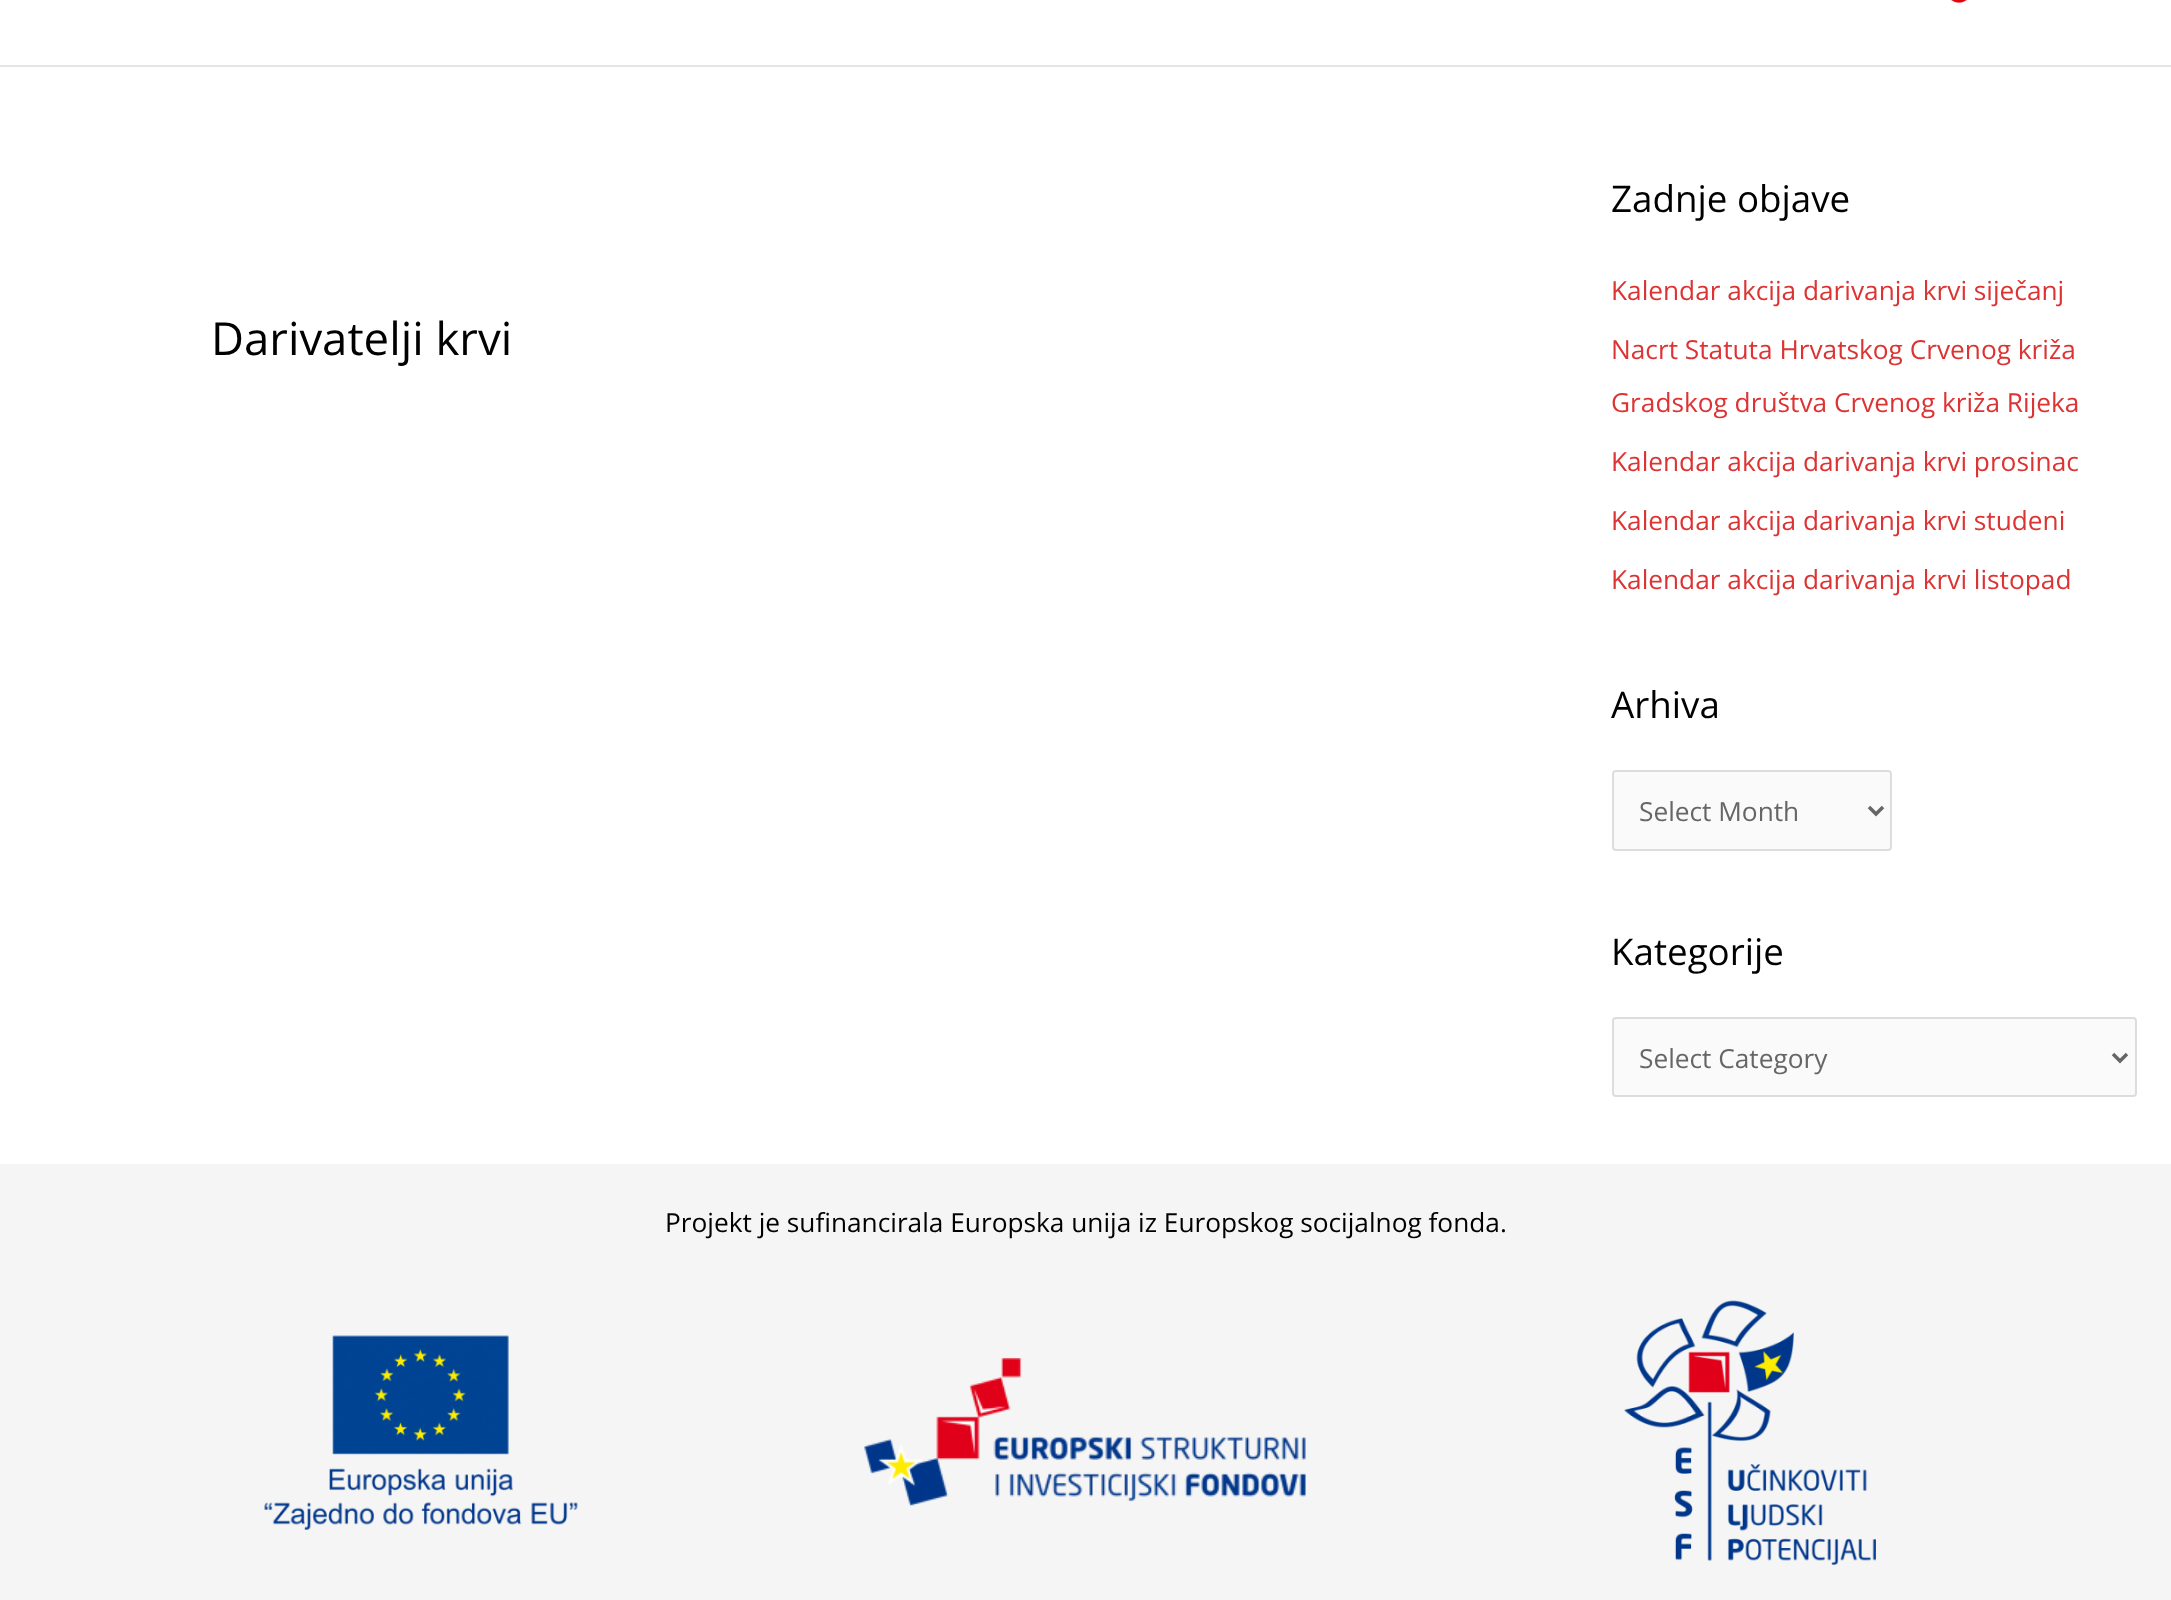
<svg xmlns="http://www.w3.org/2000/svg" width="2171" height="1600">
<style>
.a{font:45.5px Open Sans;fill:#000}
.b{font:36.75px Open Sans;fill:#000}
.c{font:26.25px Open Sans;fill:#d33}
.d{font:26.25px Open Sans;fill:#666}
.e{font:26.25px Open Sans;fill:#000}
</style>
<rect width="100%" height="100%" fill="#fff"/>
<path fill="#e5e5e5" d="M0 65h2171v2H0z"/>
<image href="1.png" x="1950" y="0" width="18" height="3"/>
<rect fill="#fafafa" stroke="#ddd" stroke-width="2" x="1613" y="771" width="278" height="79" rx="3"/>
<path fill="none" stroke="#666" stroke-width="3.5" d="M1869 807l7 7l7-7"/>
<rect fill="#fafafa" stroke="#ddd" stroke-width="2" x="1613" y="1018" width="523" height="78" rx="3"/>
<path fill="none" stroke="#666" stroke-width="3.5" d="M2113 1054l7 7l7-7"/>
<path fill="#f5f5f5" d="M0 1164h2171v436H0z"/>
<image href="2.png" x="264" y="1335" width="314" height="195"/>
<image href="3.png" x="864" y="1358" width="442" height="148"/>
<image href="4.png" x="1624" y="1300" width="252" height="265"/>
<text class="a" x="211" y="355">Darivatelji krvi</text>
<text class="b" x="1611" y="212">Zadnje objave</text>
<text class="c" x="1611" y="300">Kalendar akcija darivanja krvi siječanj</text>
<text class="c" x="1611" y="359">Nacrt Statuta Hrvatskog Crvenog križa</text>
<text class="c" x="1611" y="412">Gradskog društva Crvenog križa Rijeka</text>
<text class="c" x="1611" y="471">Kalendar akcija darivanja krvi prosinac</text>
<text class="c" x="1611" y="530">Kalendar akcija darivanja krvi studeni</text>
<text class="c" x="1611" y="589">Kalendar akcija darivanja krvi listopad</text>
<text class="b" x="1611" y="718">Arhiva</text>
<text class="d" x="1639" y="821">Select Month</text>
<text class="b" x="1611" y="965">Kategorije</text>
<text class="d" x="1639" y="1068">Select Category</text>
<text class="e" x="665" y="1232">Projekt je sufinancirala Europska unija iz Europskog socijalnog fonda.</text>
</svg>
